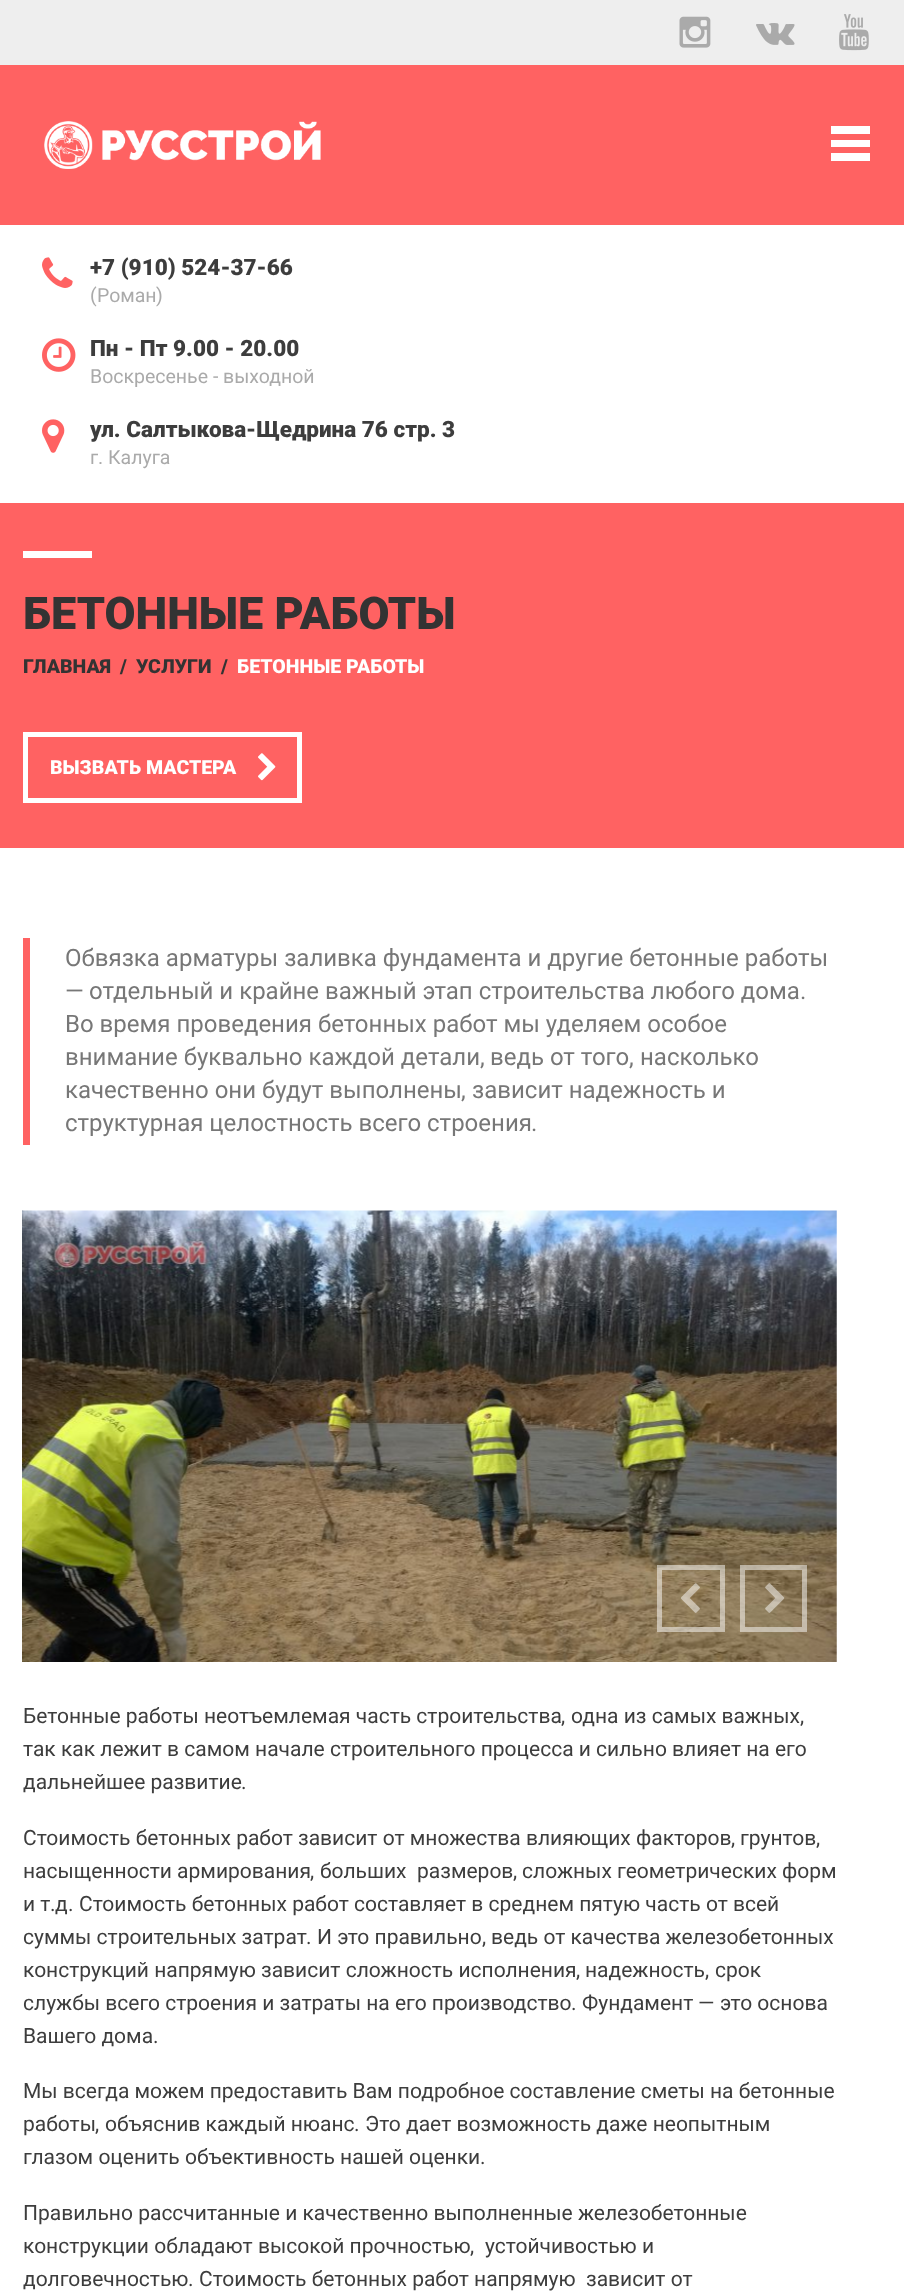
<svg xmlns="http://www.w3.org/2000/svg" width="904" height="2296">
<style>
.a{font:900 22.5px Roboto;fill:#3d3d3d}
.b{font:19.5px 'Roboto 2';fill:#aaa}
.c{font:19.5px Roboto;fill:#aaa}
.d{font:900 45px Roboto;fill:#333}
.e{font:900 19.5px Roboto;fill:#333}
.f{font:900 19.5px Roboto;fill:#fff}
.g{font:24px Roboto;fill:#777}
.h{font:24px 'Roboto 2';fill:#777}
.i{font:21px Roboto;fill:#3d3d3d}
.j{font:21px 'Roboto 2';fill:#3d3d3d}
</style>
<rect width="100%" height="100%" fill="#fff"/>
<path fill="#eee" d="M0 0h904v65H0z"/>
<image href="1.png" x="679" y="16" width="32" height="32"/>
<image href="2.png" x="756" y="23" width="39" height="22"/>
<image href="3.png" x="839" y="14" width="30" height="37"/>
<path fill="#ff6262" d="M0 65h904v160H0z"/>
<image href="4.png" x="44" y="121" width="277" height="48"/>
<path fill="#fff" d="M831 140h39v7H831z"/>
<path fill="#fff" d="M831 126h39v8H831z"/>
<path fill="#fff" d="M831 153h39v8H831z"/>
<image href="5.png" x="42" y="257" width="31" height="31"/>
<image href="6.png" x="42" y="338" width="34" height="34"/>
<image href="7.png" x="42" y="419" width="23" height="34"/>
<path fill="#ff6262" d="M0 503h904v345H0z"/>
<path fill="#fff" d="M23 551h69v7H23z"/>
<path fill="none" stroke="#fff" stroke-width="5" d="M25.5 734.5h274v66H25.5z"/>
<image href="8.png" x="258" y="753" width="18" height="28"/>
<path fill="#ff6262" d="M23 938h7v207H23z"/>
<image href="9.png" x="22" y="1210" width="1" height="1"/>
<image href="10.png" x="22" y="1210" width="815" height="452"/>
<path fill="none" stroke="#ffffff80" stroke-width="5" d="M659.5 1567.5h63v62H659.5z"/>
<image href="11.png" x="680" y="1583" width="20" height="30"/>
<path fill="none" stroke="#ffffff80" stroke-width="5" d="M742.5 1567.5h62v62H742.5z"/>
<image href="12.png" x="765" y="1583" width="20" height="30"/>
<text class="a" x="90" y="275">+7 (910) 524-37-66</text>
<text class="b" x="90" y="302">(</text>
<text class="c" x="97" y="302">Роман</text>
<text class="b" x="156" y="302">)</text>
<text class="a" x="90" y="356">Пн - Пт 9.00 - 20.00</text>
<text class="c" x="90" y="383">Воскресенье</text>
<text class="b" x="213" y="383">-</text>
<text class="c" x="223" y="383">выходной</text>
<text class="a" x="90" y="437">ул. Салтыкова-Щедрина 76 стр. 3</text>
<text class="c" x="90" y="464">г</text>
<text class="b" x="98" y="464">.</text>
<text class="c" x="108" y="464">Калуга</text>
<text class="d" x="23" y="629">БЕТОННЫЕ РАБОТЫ</text>
<text class="e" x="23" y="673">ГЛАВНАЯ</text>
<text class="e" x="120" y="673">/</text>
<text class="e" x="136" y="673">УСЛУГИ</text>
<text class="e" x="221" y="673">/</text>
<text class="f" x="237" y="673">БЕТОННЫЕ РАБОТЫ</text>
<text class="f" x="50" y="774">ВЫЗВАТЬ МАСТЕРА</text>
<text class="g" x="65" y="966">Обвязка арматуры заливка фундамента и другие бетонные работы</text>
<text class="h" x="65" y="999">—</text>
<text class="g" x="89" y="999">отдельный и крайне важный этап строительства любого дома</text>
<text class="h" x="800" y="999">.</text>
<text class="g" x="65" y="1032">Во время проведения бетонных работ мы уделяем особое</text>
<text class="g" x="65" y="1065">внимание буквально каждой детали</text>
<text class="h" x="480" y="1065">,</text>
<text class="g" x="490" y="1065">ведь от того</text>
<text class="h" x="629" y="1065">,</text>
<text class="g" x="640" y="1065">насколько</text>
<text class="g" x="65" y="1098">качественно они будут выполнены</text>
<text class="h" x="461" y="1098">,</text>
<text class="g" x="472" y="1098">зависит надежность и</text>
<text class="g" x="65" y="1131">структурная целостность всего строения</text>
<text class="h" x="531" y="1131">.</text>
<text class="i" x="23" y="1723">Бетонные работы неотъемлемая часть строительства</text>
<text class="j" x="561" y="1723">,</text>
<text class="i" x="571" y="1723">одна из самых важных</text>
<text class="j" x="800" y="1723">,</text>
<text class="i" x="23" y="1756">так как лежит в самом начале строительного процесса и сильно влияет на его</text>
<text class="i" x="23" y="1789">дальнейшее развитие</text>
<text class="j" x="241" y="1789">.</text>
<text class="i" x="23" y="1845">Стоимость бетонных работ зависит от множества влияющих факторов</text>
<text class="j" x="731" y="1845">,</text>
<text class="i" x="740" y="1845">грунтов</text>
<text class="j" x="816" y="1845">,</text>
<text class="i" x="23" y="1878">насыщенности армирования</text>
<text class="j" x="310" y="1878">,</text>
<text class="i" x="320" y="1878">больших</text>
<text class="i" x="417" y="1878">размеров</text>
<text class="j" x="513" y="1878">,</text>
<text class="i" x="522" y="1878">сложных геометрических форм</text>
<text class="i" x="23" y="1911">и т</text>
<text class="j" x="50" y="1911">.</text>
<text class="i" x="55" y="1911">д</text>
<text class="j" x="68" y="1911">.</text>
<text class="i" x="79" y="1911">Стоимость бетонных работ составляет в среднем пятую часть от всей</text>
<text class="i" x="23" y="1944">суммы строительных затрат</text>
<text class="j" x="306" y="1944">.</text>
<text class="i" x="317" y="1944">И это правильно</text>
<text class="j" x="482" y="1944">,</text>
<text class="i" x="491" y="1944">ведь от качества железобетонных</text>
<text class="i" x="23" y="1977">конструкций напрямую зависит сложность исполнения</text>
<text class="j" x="576" y="1977">,</text>
<text class="i" x="585" y="1977">надежность</text>
<text class="j" x="705" y="1977">,</text>
<text class="i" x="715" y="1977">срок</text>
<text class="i" x="23" y="2010">службы всего строения и затраты на его производство</text>
<text class="i" x="582" y="2010">Фундамент</text>
<text class="j" x="698" y="2010">—</text>
<text class="i" x="720" y="2010">это основа</text>
<text class="j" x="571" y="2010">.</text>
<text class="i" x="23" y="2043">Вашего дома</text>
<text class="j" x="153" y="2043">.</text>
<text class="i" x="23" y="2098">Мы всегда можем предоставить Вам подробное составление сметы на бетонные</text>
<text class="i" x="23" y="2131">работы</text>
<text class="j" x="95" y="2131">,</text>
<text class="i" x="105" y="2131">объяснив каждый нюанс</text>
<text class="j" x="354" y="2131">.</text>
<text class="i" x="365" y="2131">Это дает возможность даже неопытным</text>
<text class="i" x="23" y="2164">глазом оценить объективность нашей оценки</text>
<text class="j" x="480" y="2164">.</text>
<text class="i" x="23" y="2220">Правильно рассчитанные и качественно выполненные железобетонные</text>
<text class="i" x="23" y="2253">конструкции обладают высокой прочностью</text>
<text class="j" x="470" y="2253">,</text>
<text class="i" x="485" y="2253">устойчивостью и</text>
<text class="i" x="23" y="2286">долговечностью</text>
<text class="j" x="188" y="2286">.</text>
<text class="i" x="199" y="2286">Стоимость бетонных работ напрямую</text>
<text class="i" x="586" y="2286">зависит от</text>
</svg>
